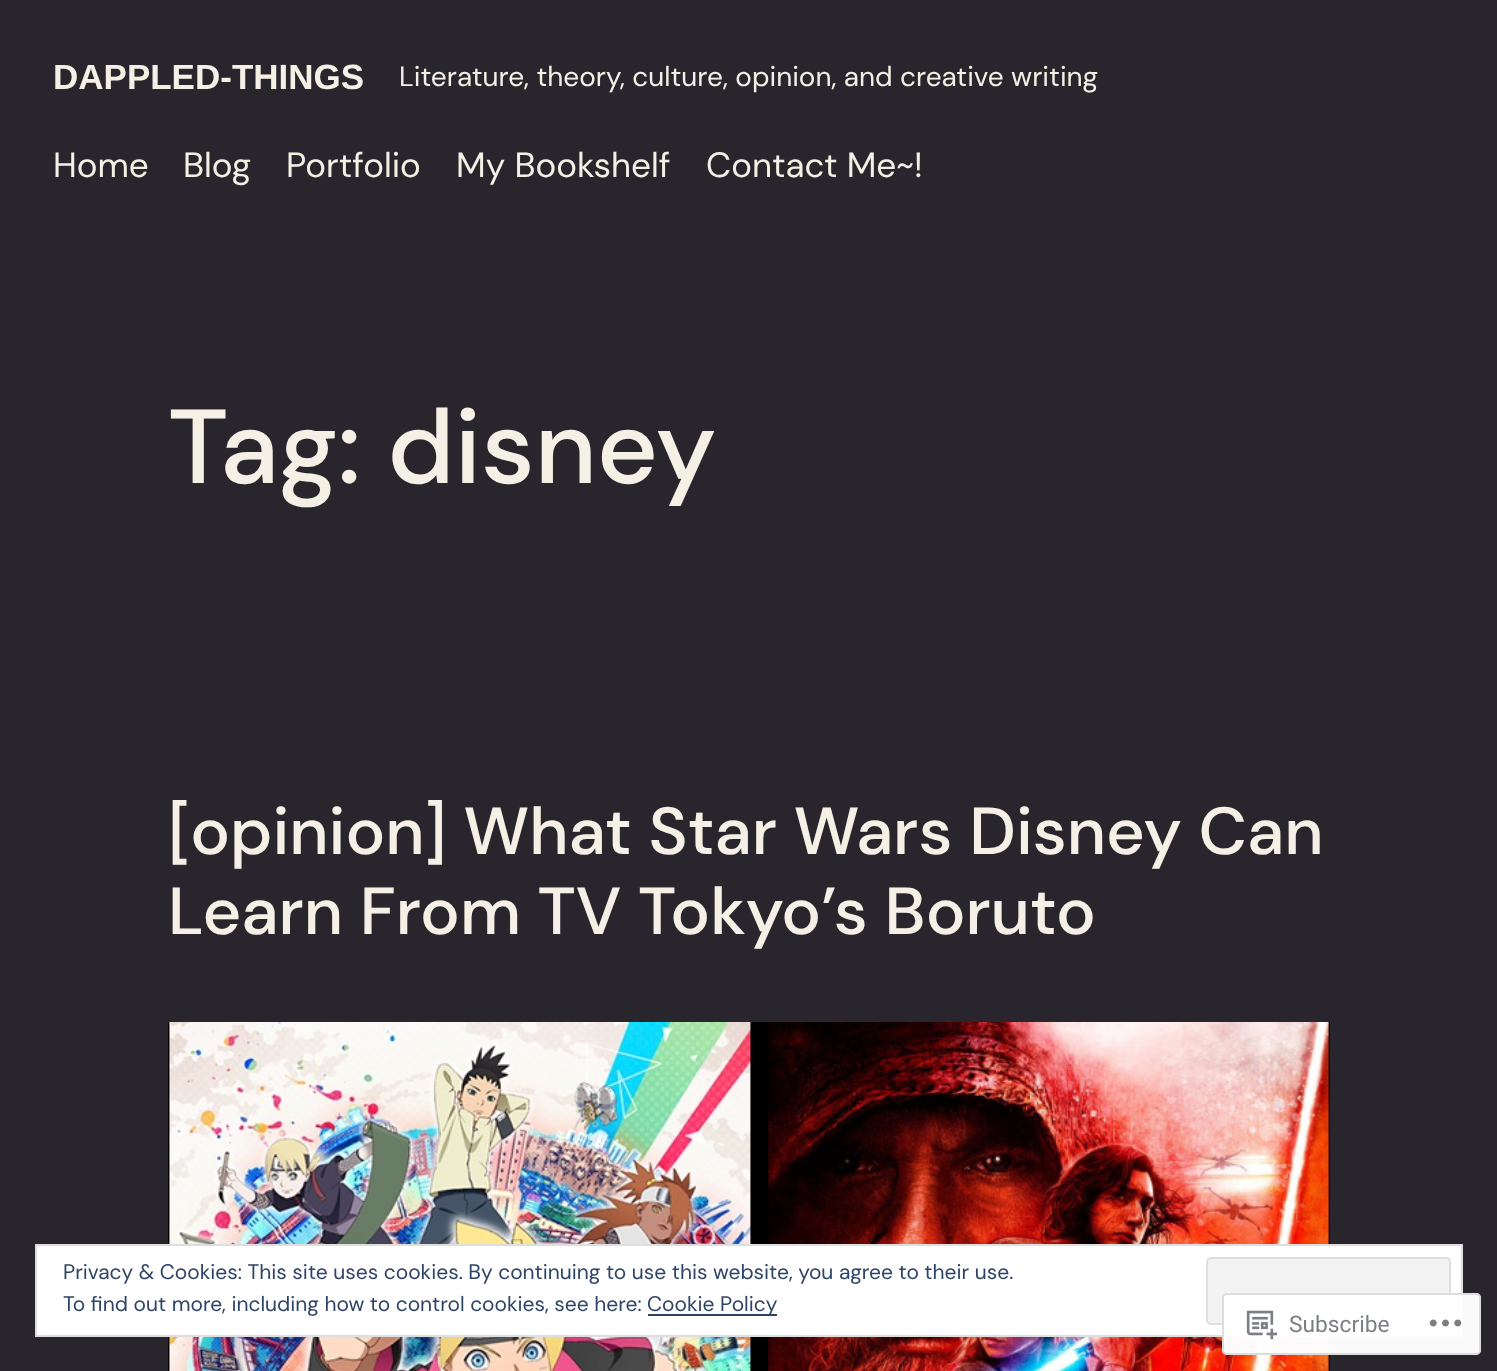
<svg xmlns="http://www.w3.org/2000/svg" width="1497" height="1371">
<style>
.a{font:bold 35px Liberation Sans;fill:#f5f0e5}
.b{font:28px DM Sans;fill:#f5f0e5}
.c{font:35px DM Sans;fill:#f5f0e5}
.d{font:500 105px DM Sans;fill:#f5f0e5}
.e{font:500 66.5px DM Sans;fill:#f5f0e5}
.f{font:21px DM Sans;fill:#2e4467}
.g{font:22.75px Roboto;fill:#7b7f84}
</style>
<rect width="100%" height="100%" fill="#28262c"/>
<image href="1.png" x="168" y="1022" width="1162" height="349"/>
<path fill="#fff" stroke="#dedede" stroke-width="2" d="M36 1245h1426v91H36z"/>
<rect fill="#f3f3f3" stroke="#dedede" stroke-width="2" x="1207" y="1258" width="243" height="66" rx="4"/>
<path fill="#2e4467" d="M648 1314h129v2H648z"/>
<rect fill="#fffffffa" x="1222" y="1293" width="259" height="62" rx="5"/>
<rect fill="none" stroke="#dcdcdefa" stroke-width="2" x="1223" y="1294" width="257" height="60" rx="4"/>
<image href="2.png" x="1246" y="1310" width="32" height="30"/>
<image href="3.png" x="1429" y="1319" width="33" height="8"/>
<text class="a" x="53" y="89">DAPPLED-THINGS</text>
<text class="b" x="399" y="86">Literature, theory, culture, opinion, and creative writing</text>
<text class="c" x="53" y="177">Home</text>
<text class="c" x="183" y="177">Blog</text>
<text class="c" x="286" y="177">Portfolio</text>
<text class="c" x="456" y="177">My Bookshelf</text>
<text class="c" x="706" y="177">Contact Me~!</text>
<text class="d" x="168" y="483">Tag: disney</text>
<text class="e" x="168" y="854">[opinion] What Star Wars Disney Can</text>
<text class="e" x="168" y="934">Learn From TV Tokyo’s Boruto</text>
<text class="f" x="63" y="1279">Privacy &amp; Cookies: This site uses cookies. By continuing to use this website, you agree to their use.</text>
<text class="f" x="63" y="1311">To find out more, including how to control cookies, see here:</text>
<text class="f" x="647" y="1311">Cookie Policy</text>
<text class="g" x="1289" y="1332">Subscribe</text>
</svg>
